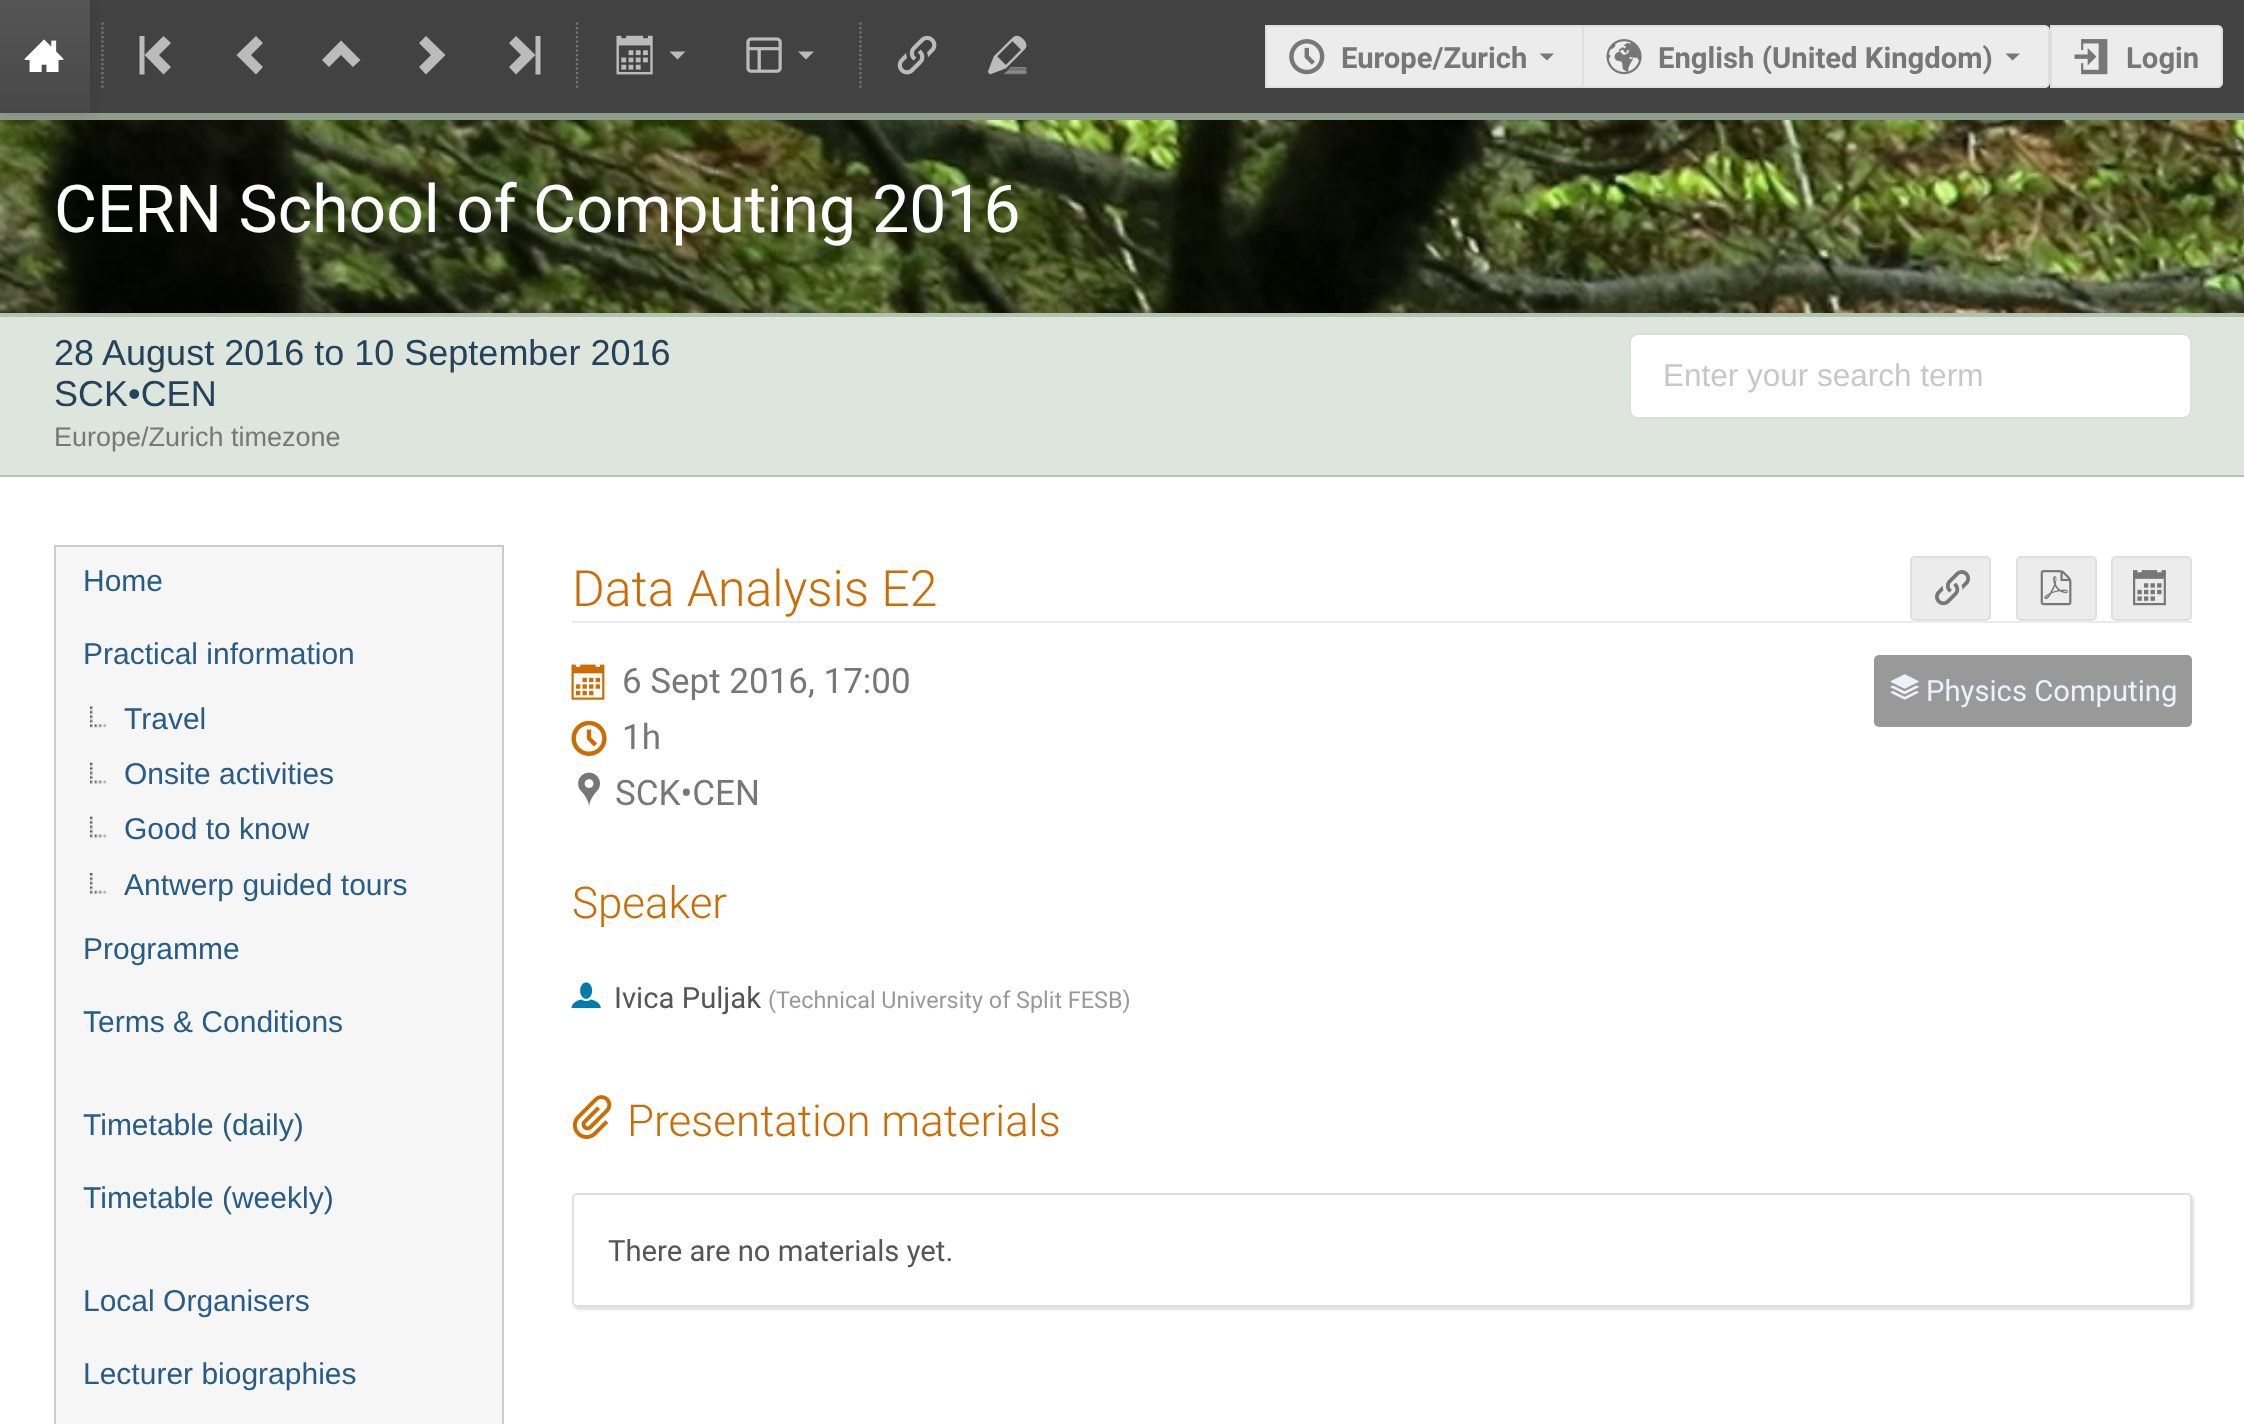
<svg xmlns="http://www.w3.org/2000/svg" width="2244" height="1424">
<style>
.a{font:bold 29.25px Roboto;fill:#777}
.b{font:66px Roboto;fill:#fff}
.c{font:36px Liberation Sans;fill:#24425a}
.d{font:27px Liberation Sans;fill:#777}
.e{font:31.5px Liberation Sans;fill:#c7c7c7}
.f{font:30px Liberation Sans;fill:#275c86}
.g{font:300 50px Roboto;fill:#cb6d04}
.h{font:35px Roboto;fill:#777}
.i{font:29.25px Roboto;fill:#edf3fd}
.j{font:300 43.9px Roboto;fill:#cb6d04}
.k{font:29.25px Roboto;fill:#555}
.l{font:23.4px Roboto;fill:#999}
</style>
<defs>
<linearGradient id="g1" gradientUnits="userSpaceOnUse" x1="45" y1="0" x2="45" y2="113"><stop offset="0" stop-color="#555"/><stop offset="1" stop-color="#484848"/></linearGradient>
</defs>
<rect width="100%" height="100%" fill="#fff"/>
<path fill="#424242" d="M90 0h2154v113H90z"/>
<image href="9.png" x="0" y="120" width="2244" height="193"/>
<path fill="#8e9c8c" d="M0 113h2244v7H0z"/>
<path fill="#1414141a" filter="blur(4.5px)" d="M2 2h90v113H2z"/>
<path fill="url(#g1)" d="M0 0h90v113H0z"/>
<image href="1.png" x="24" y="39" width="40" height="33"/>
<path fill="none" stroke="#777" stroke-width="2.2" stroke-dasharray="2.25 2.25" d="M102.5 22.5v67.5"/>
<path fill="#bbb" d="M171 43l-7.5-7l-19 19l19 19.5l7.5-7.5l-12-12zm-31.5-7v38.5h5v-38.5z"/>
<path fill="#bbb" d="M256 74.5l7-7.5l-12-12l12-12l-7-7l-19.5 19z"/>
<path fill="#bbb" d="M322 60l7 7l12-12l12 12l7.5-7l-19.5-19.5z"/>
<path fill="#bbb" d="M426 36l-7 7l12 12l-12 12l7 7.5l19.5-19.5z"/>
<path fill="#bbb" d="M509 67l7 7.5l19.5-19.5l-19.5-19l-7 7l12 12zm31.5 7.5v-38.5h-5v38.5z"/>
<path fill="none" stroke="#777" stroke-width="2.2" stroke-dasharray="2.25 2.25" d="M577 22.5v67.5"/>
<image href="2.png" x="616" y="35" width="37" height="40"/>
<path fill="#bbb" d="M669.5 51.5l8 8l8-8z"/>
<image href="3.png" x="746" y="37" width="36" height="36"/>
<path fill="#bbb" d="M798 51.5l8 8l8-8z"/>
<path fill="none" stroke="#777" stroke-width="2.2" stroke-dasharray="2.25 2.25" d="M860.5 22.5v67.5"/>
<image href="4.png" x="897" y="35" width="40" height="40"/>
<image href="5.png" x="987" y="35" width="40" height="40"/>
<path fill="#ececec" d="M1267 27h315v59H1267z"/>
<path fill="#dfdfdf" d="M1265 25h317v2H1265z"/>
<path fill="#dfdfdf" d="M1265 86h317v2H1265z"/>
<path fill="#dfdfdf" d="M1265 25h2v63H1265z"/>
<image href="6.png" x="1289" y="39" width="36" height="36"/>
<path fill="#777" d="M1539.5 53.5l7.5 7l7-7z"/>
<path fill="#ececec" stroke="#dfdfdf" stroke-width="2" d="M1583 26h462c2 0 4 2 4 4v53c0 2-2 4-4 4h-462z"/>
<image href="7.png" x="1606" y="39" width="36" height="36"/>
<path fill="#777" d="M2005.5 53.5l7 7l7.5-7z"/>
<path fill="#ececec" stroke="#dfdfdf" stroke-width="2" d="M2051 26h167c2 0 4 2 4 4v53c0 2-2 4-4 4h-167z"/>
<image href="8.png" x="2074" y="39" width="34" height="36"/>
<path fill="#b2c4b0" d="M0 313h2244v4H0z"/>
<path fill="#dde5dc" d="M0 317h2244v158H0z"/>
<path fill="#b2c4b0" d="M0 475h2244v2H0z"/>
<rect fill="#fff" x="1629" y="333" width="563" height="86" rx="9"/>
<rect fill="none" stroke="#22242626" stroke-width="2" x="1630" y="334" width="561" height="84" rx="8"/>
<path fill="#f6f6f6" stroke="#ccc" stroke-width="2" d="M55 546h448v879H55z"/>
<image href="10.png" x="90" y="706" width="17" height="22"/>
<image href="11.png" x="90" y="762" width="17" height="22"/>
<image href="11.png" x="90" y="816" width="17" height="22"/>
<image href="12.png" x="90" y="873" width="17" height="21"/>
<path fill="#ebebeb" d="M572 621h1620v2H572z"/>
<rect fill="#ececec" stroke="#dfdfdf" stroke-width="2" x="1911" y="557" width="79" height="63" rx="4"/>
<image href="13.png" x="1935" y="570" width="36" height="36"/>
<rect fill="#ececec" stroke="#dfdfdf" stroke-width="2" x="2017" y="557" width="79" height="63" rx="4"/>
<image href="14.png" x="2040" y="570" width="32" height="36"/>
<rect fill="#ececec" stroke="#dfdfdf" stroke-width="2" x="2112" y="557" width="79" height="63" rx="4"/>
<image href="15.png" x="2133" y="570" width="33" height="36"/>
<image href="16.png" x="571" y="664" width="34" height="36"/>
<image href="17.png" x="571" y="720" width="36" height="36"/>
<image href="18.png" x="578" y="772" width="22" height="35"/>
<rect fill="#999" x="1874" y="655" width="318" height="72" rx="5"/>
<image href="19.png" x="1890" y="674" width="29" height="26"/>
<image href="20.png" x="571" y="982" width="30" height="26"/>
<image href="21.png" x="572" y="1095" width="40" height="44"/>
<rect fill="#e1e1e1" filter="blur(1px)" x="574" y="1195" width="1620" height="115" rx="5"/>
<rect fill="#fff" stroke="#dfdfdf" stroke-width="2" x="573" y="1194" width="1618" height="112" rx="4"/>
<text class="a" x="1341" y="68">Europe/Zurich</text>
<text class="a" x="1658" y="68">English (United Kingdom)</text>
<text class="a" x="2126" y="68">Login</text>
<text class="b" x="54" y="232">CERN School of Computing 2016</text>
<text class="c" x="54" y="365">28 August 2016 to 10 September 2016</text>
<text class="c" x="54" y="406">SCK•CEN</text>
<text class="d" x="54" y="446">Europe/Zurich timezone</text>
<text class="e" x="1663" y="386">Enter your search term</text>
<text class="f" x="83" y="591">Home</text>
<text class="f" x="83" y="664">Practical information</text>
<text class="f" x="124" y="729">Travel</text>
<text class="f" x="124" y="784">Onsite activities</text>
<text class="f" x="124" y="839">Good to know</text>
<text class="f" x="124" y="895">Antwerp guided tours</text>
<text class="f" x="83" y="959">Programme</text>
<text class="f" x="83" y="1032">Terms &amp; Conditions</text>
<text class="f" x="83" y="1135">Timetable (daily)</text>
<text class="f" x="83" y="1208">Timetable (weekly)</text>
<text class="f" x="83" y="1311">Local Organisers</text>
<text class="f" x="83" y="1384">Lecturer biographies</text>
<text class="g" x="572" y="606">Data Analysis E2</text>
<text class="h" x="622" y="693">6 Sept 2016, 17:00</text>
<text class="h" x="622" y="749">1h</text>
<text class="h" x="615" y="805">SCK•CEN</text>
<text class="i" x="1926" y="701">Physics Computing</text>
<text class="j" x="572" y="918">Speaker</text>
<text class="k" x="614" y="1008">Ivica Puljak</text>
<text class="l" x="768" y="1008">(Technical University of Split FESB)</text>
<text class="j" x="627" y="1136">Presentation materials</text>
<text class="k" x="608" y="1261">There are no materials yet.</text>
</svg>
